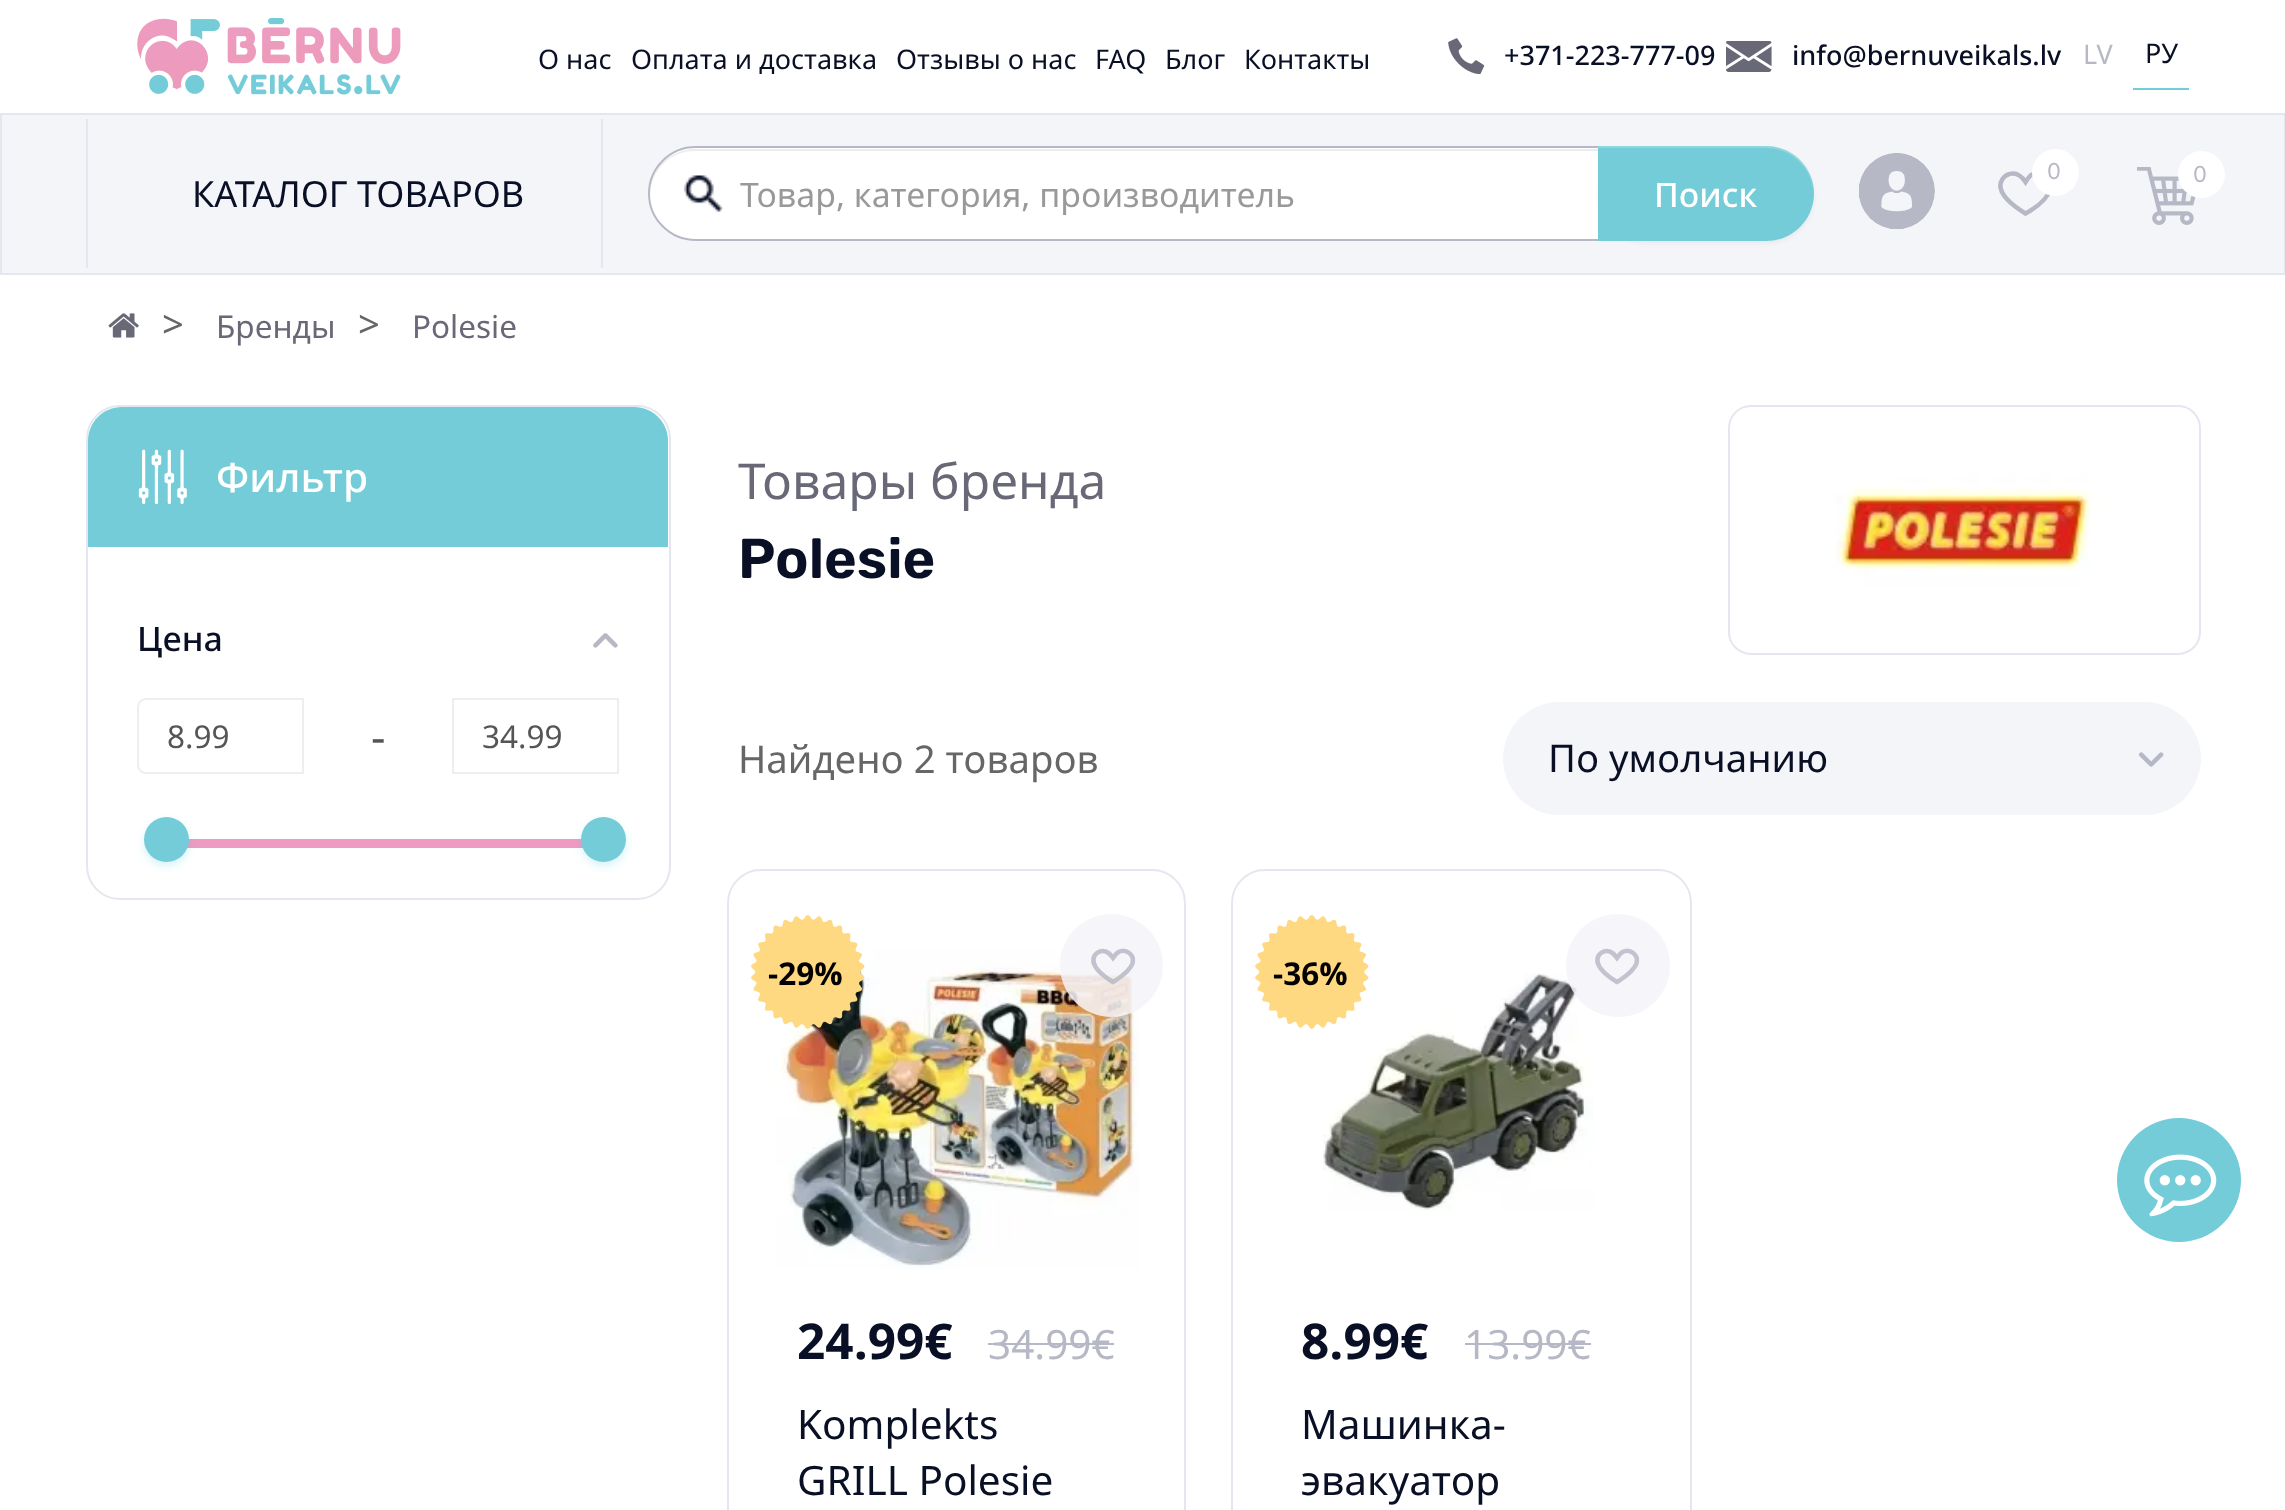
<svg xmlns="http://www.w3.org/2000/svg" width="2285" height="1510">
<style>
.a{font:27px Noto Sans;fill:#090f24}
.b{font:500 27px Noto Sans;fill:#090f24}
.c{font:27px Noto Sans;fill:#b7b8c5}
.d{font:22px Inter;fill:#b7b8c5}
.e{font:36px Noto Sans;fill:#090f24}
.f{font:33.75px Noto Sans;fill:#999}
.g{font:500 33.75px Noto Sans;fill:#fff}
.h{font:38.25px Noto Sans;fill:#666}
.i{font:31.5px Noto Sans;fill:#686877}
.j{font:500 40.5px Noto Sans;fill:#fff}
.k{font:500 33.75px Noto Sans;fill:#090f24}
.l{font:31.5px Noto Sans;fill:#555}
.m{font:45px Noto Sans;fill:#555}
.n{font:49.5px Noto Sans;fill:#686877}
.o{font:600 56px Rubik;fill:#090f24}
.p{font:38.25px Noto Sans;fill:#090f24}
.q{font:bold 31.5px Noto Sans;fill:#000}
.r{font:bold 49.5px Noto Sans;fill:#090f24}
.s{font:40.5px Noto Sans;fill:#b7b8c5}
.t{font:40.5px Noto Sans;fill:#090f24}
</style>
<rect width="100%" height="100%" fill="#fff"/>
<image href="1.png" x="137" y="18" width="264" height="77"/>
<image href="2.png" x="1448" y="38" width="37" height="36"/>
<image href="3.png" x="1726" y="41" width="46" height="31"/>
<path fill="#74ccd8" d="M2133 88h56v2H2133z"/>
<path fill="#f4f5f9" stroke="#e4e7ee" stroke-width="2" d="M1 114h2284v160H1z"/>
<image href="4.png" x="1859" y="153" width="76" height="76"/>
<path fill="none" stroke="#b7b8c5" stroke-width="4.5" d="M2025.5 213.5c-10-6-32-21-23-34.5c2.5-3.5 6.5-5.5 10.5-5.5c6 0 9.5 4 12.5 8.5c1.5-2.5 3-4.5 5-6.5c9.5-6.5 23 3 19.5 14c-3 10.5-15.5 19-24.5 24z"/>
<circle fill="#fff" cx="2055.5" cy="172.5" r="23.5"/>
<image href="5.png" x="2137" y="167" width="59" height="58"/>
<circle fill="#fff" cx="2201.5" cy="174.5" r="23.5"/>
<path fill="#e4e7ee" d="M601 119h2v149H601z"/>
<path fill="#e4e7ee" d="M86 119h2v149H86z"/>
<path fill="#fff" d="M695.5 146h904.5v95h-904.5c-26 0-47.5-21.5-47.5-47.5c0-26 21.5-47.5 47.5-47.5z"/>
<image href="6.png" x="684" y="175" width="39" height="37"/>
<path fill="#ececec" d="M695 151h903v-2h-903c-25 0-46 21-45 46c1-25 20-44 45-44z"/>
<path fill="none" stroke="#b7b8c5" stroke-width="2" d="M695.5 147h903.5v93h-903.5c-25.5 0-46.5-21-46.5-46.5c0-25.5 21-46.5 46.5-46.5z"/>
<rect fill="#0000000d" filter="blur(2px)" x="1598" y="149" width="216" height="94" rx="47"/>
<path fill="#74ccd8" d="M1598 146h168.5c26 0 47.5 21.5 47.5 47.5c0 26-21.5 47.5-47.5 47.5h-168.5z"/>
<path fill="#ffffff33" d="M1598 148h168c26 0 47 21 48 47v-1c0-27-21-48-48-48h-168z"/>
<image href="7.png" x="108" y="313" width="31" height="25"/>
<rect fill="none" stroke="#e4e7ee" stroke-width="2" x="87" y="406" width="583" height="493" rx="33"/>
<path fill="#74ccd8" d="M122 407h512c19 0 34 15 34 34v106h-580v-106c0-19 15-34 34-34z"/>
<image href="8.png" x="138" y="449" width="49" height="56"/>
<image href="9.png" x="593" y="633" width="25" height="15"/>
<path fill="none" stroke="#eee" stroke-width="2" d="M146 699h157v74h-157c-4.5 0-8-3.5-8-8v-58c0-4.5 3.5-8 8-8z"/>
<path fill="none" stroke="#eee" stroke-width="2" d="M453 699h165v74H453z"/>
<path fill="#ed9bc1" d="M187 839h396v9H187z"/>
<rect fill="#33c4df33" filter="blur(4.5px)" x="144" y="821" width="45" height="45" rx="22.5"/>
<circle fill="#74ccd8" cx="166.5" cy="839.5" r="22.5"/>
<rect fill="#33c4df33" filter="blur(4.5px)" x="581" y="821" width="45" height="45" rx="22.5"/>
<circle fill="#74ccd8" cx="603.5" cy="839.5" r="22.5"/>
<rect fill="none" stroke="#e4e7ee" stroke-width="2" x="1729" y="406" width="471" height="248" rx="22"/>
<image href="10.png" x="1731" y="408" width="459" height="236"/>
<rect fill="#f4f5f9" x="1503" y="702" width="698" height="113" rx="56.5"/>
<image href="11.png" x="2138" y="752" width="26" height="15"/>
<rect fill="none" stroke="#e4e7ee" stroke-width="2" x="728" y="870" width="457" height="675" rx="33"/>
<image href="12.png" x="773" y="949" width="366" height="320"/>
<image href="13.png" x="751" y="915" width="114" height="114"/>
<circle fill="#f4f5f9d9" cx="1111.5" cy="965.5" r="51.5"/>
<path fill="none" stroke="#b7b8c5d9" stroke-width="4.5" d="M1115.5 980.5l-2.5 1.5c-7.5-4.5-25-16.5-18-27c2-2.5 5-4 8-4c5 0 7.5 3.5 10 7c1.5-2 3-4.5 5.5-6c7.5-4 16.5 3 14 11.5c-2.5 7-11 13-17 17z"/>
<path fill="#b7b8c5" d="M988 1343h126v2H988z"/>
<rect fill="none" stroke="#e4e7ee" stroke-width="2" x="1232" y="870" width="459" height="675" rx="33"/>
<image href="15.png" x="1323" y="973" width="271" height="238"/>
<image href="14.png" x="1255" y="915" width="114" height="114"/>
<rect fill="#f4f5f9d9" x="1566" y="914" width="104" height="103" rx="51.5"/>
<path fill="none" stroke="#c2c3ce" stroke-width="4.5" d="M1619.5 980.5l-2.5 1.5c-7.5-4.5-25-16.5-18-27c2-2.5 5-4 8-4c5 0 7.5 3.5 10 7c1.5-2 3-4.5 5.5-6c7.5-4 16.5 3 14 11.5c-2.5 7-11 13-17 17z"/>
<path fill="#b7b8c5" d="M1465 1343h126v2H1465z"/>
<circle fill="#74ccd8" cx="2179" cy="1180" r="62"/>
<image href="16.png" x="2144" y="1154" width="73" height="63"/>
<text class="a" x="538" y="69">О нас</text>
<text class="a" x="631" y="69">Оплата и доставка</text>
<text class="a" x="896" y="69">Отзывы о нас</text>
<text class="a" x="1095" y="69">FAQ</text>
<text class="a" x="1165" y="69">Блог</text>
<text class="a" x="1244" y="69">Контакты</text>
<text class="b" x="1504" y="65">+371-223-777-09</text>
<text class="b" x="1792" y="65">info@bernuveikals.lv</text>
<text class="c" x="2083" y="64">LV</text>
<text class="a" x="2145" y="63">РУ</text>
<text class="d" x="2047" y="179">0</text>
<text class="d" x="2193" y="182">0</text>
<text class="e" x="192" y="207">КАТАЛОГ ТОВАРОВ</text>
<text class="f" x="740" y="207">Товар, категория, производитель</text>
<text class="g" x="1654" y="207">Поиск</text>
<text class="h" x="162" y="338">&gt;</text>
<text class="i" x="216" y="338">Бренды</text>
<text class="h" x="358" y="338">&gt;</text>
<text class="i" x="412" y="338">Polesie</text>
<text class="j" x="216" y="492">Фильтр</text>
<text class="k" x="137" y="651">Цена</text>
<text class="l" x="167" y="748">8.99</text>
<text class="m" x="371" y="753">-</text>
<text class="l" x="482" y="748">34.99</text>
<text class="n" x="738" y="499">Товары бренда</text>
<text class="o" x="738" y="578">Polesie</text>
<text class="h" x="738" y="773">Найдено 2 товаров</text>
<text class="p" x="1548" y="772">По умолчанию</text>
<text class="q" x="768" y="985">-29%</text>
<text class="r" x="797" y="1359">24.99€</text>
<text class="s" x="988" y="1359">34.99€</text>
<text class="t" x="797" y="1439">Komplekts</text>
<text class="t" x="797" y="1495">GRILL Polesie</text>
<text class="q" x="1273" y="985">-36%</text>
<text class="r" x="1301" y="1359">8.99€</text>
<text class="s" x="1464" y="1359">13.99€</text>
<text class="t" x="1301" y="1439">Машинка-</text>
<text class="t" x="1301" y="1495">эвакуатор</text>
</svg>
